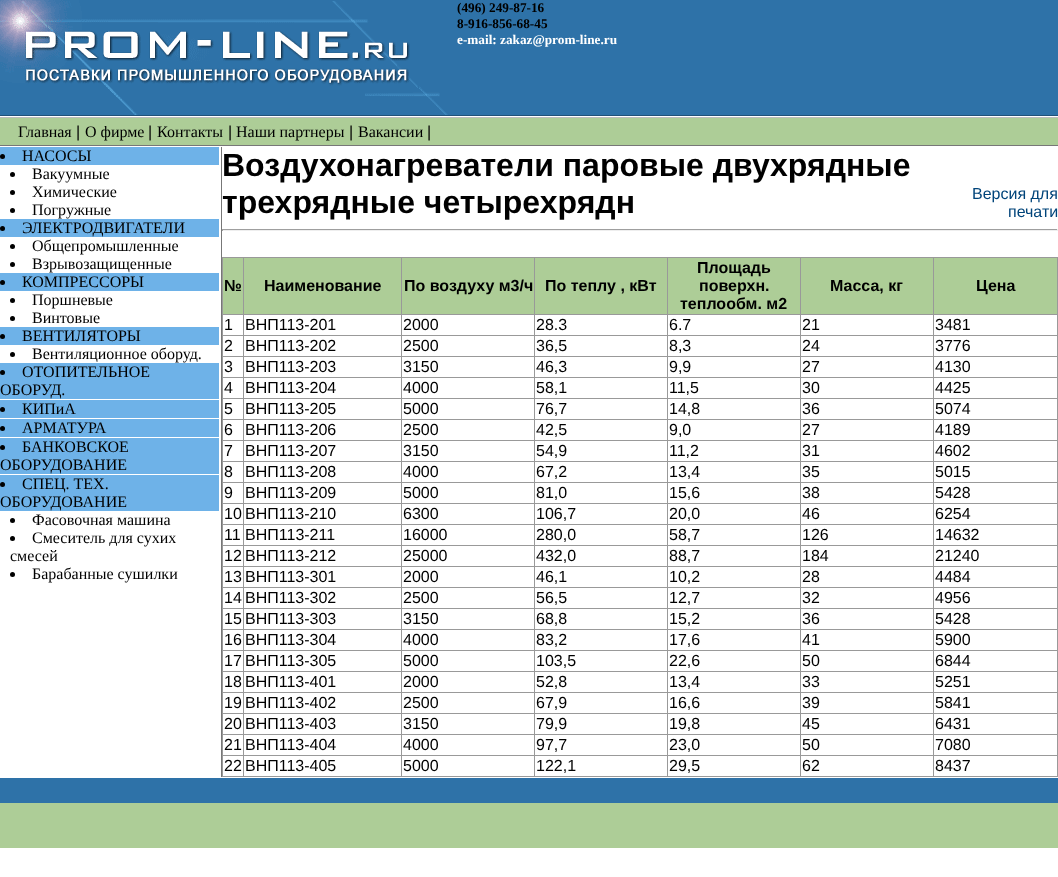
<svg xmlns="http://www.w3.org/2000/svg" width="1058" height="877">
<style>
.a{font:bold 13.25px Liberation Serif;fill:#000}
.b{font:bold 13.25px Liberation Serif;fill:#fff}
.c{font:16px Liberation Serif;fill:#000}
.d{font:16px Liberation Sans;fill:#000}
.e{font:bold 32px Liberation Sans;fill:#000}
.f{font:16px Liberation Sans;fill:#00447a}
.g{font:bold 16px Liberation Sans;fill:#000}
</style>
<rect width="100%" height="100%" fill="#fff"/>
<path fill="#2e72a8" d="M448 0h610v115H448z"/>
<image href="1.png" x="0" y="0" width="448" height="115"/>
<path fill="#215279" d="M0 115h1058v1H0z"/>
<path fill="#bbb" d="M0 117h1058v1H0z"/>
<path fill="#adcd97" d="M0 118h1058v27H0z"/>
<path fill="#777" d="M0 145h1058v1H0z"/>
<path fill="#777" d="M221 147h1v630H221z"/>
<path fill="#6eb2e8" d="M0 147h219v18H0z"/>
<circle fill="#000" cx="2.5" cy="156.5" r="2.5"/>
<circle fill="#000" cx="12.5" cy="174.5" r="2.5"/>
<circle fill="#000" cx="12.5" cy="192.5" r="2.5"/>
<circle fill="#000" cx="12.5" cy="210.5" r="2.5"/>
<path fill="#6eb2e8" d="M0 219h219v18H0z"/>
<circle fill="#000" cx="2.5" cy="228.5" r="2.5"/>
<circle fill="#000" cx="12.5" cy="246.5" r="2.5"/>
<circle fill="#000" cx="12.5" cy="264.5" r="2.5"/>
<path fill="#6eb2e8" d="M0 273h219v18H0z"/>
<circle fill="#000" cx="2.5" cy="282.5" r="2.5"/>
<circle fill="#000" cx="12.5" cy="300.5" r="2.5"/>
<circle fill="#000" cx="12.5" cy="318.5" r="2.5"/>
<path fill="#6eb2e8" d="M0 327h219v18H0z"/>
<circle fill="#000" cx="2.5" cy="336.5" r="2.5"/>
<circle fill="#000" cx="12.5" cy="354.5" r="2.5"/>
<path fill="#6eb2e8" d="M0 363h219v36H0z"/>
<circle fill="#000" cx="2.5" cy="372.5" r="2.5"/>
<path fill="#6eb2e8" d="M0 400h219v18H0z"/>
<circle fill="#000" cx="2.5" cy="409.5" r="2.5"/>
<path fill="#6eb2e8" d="M0 419h219v18H0z"/>
<circle fill="#000" cx="2.5" cy="428.5" r="2.5"/>
<path fill="#6eb2e8" d="M0 438h219v36H0z"/>
<circle fill="#000" cx="2.5" cy="447.5" r="2.5"/>
<path fill="#6eb2e8" d="M0 475h219v36H0z"/>
<circle fill="#000" cx="2.5" cy="484.5" r="2.5"/>
<circle fill="#000" cx="12.5" cy="520.5" r="2.5"/>
<circle fill="#000" cx="12.5" cy="538.5" r="2.5"/>
<circle fill="#000" cx="12.5" cy="574.5" r="2.5"/>
<path fill="#9f9f9f" d="M222 229h836v1H222z"/>
<path fill="#eee" d="M1057 229h1v2H1057z"/>
<path fill="#eee" d="M222 230h836v1H222z"/>
<path fill="#9f9f9f" d="M222 229h1v2H222z"/>
<path fill="#999" d="M222 257h836v1H222z"/>
<path fill="#999" d="M1057 257h1v520H1057z"/>
<path fill="#999" d="M222 776h836v1H222z"/>
<path fill="#999" d="M222 257h1v520H222z"/>
<path fill="#adcd97" d="M223 258h20v56H223z"/>
<path fill="#adcd97" d="M244 258h157v56H244z"/>
<path fill="#999" d="M933 314h125v1H933z"/>
<path fill="#999" d="M933 335h125v1H933z"/>
<path fill="#999" d="M933 356h125v1H933z"/>
<path fill="#999" d="M933 377h125v1H933z"/>
<path fill="#999" d="M933 398h125v1H933z"/>
<path fill="#999" d="M933 419h125v1H933z"/>
<path fill="#999" d="M933 440h125v1H933z"/>
<path fill="#999" d="M933 461h125v1H933z"/>
<path fill="#999" d="M933 482h125v1H933z"/>
<path fill="#999" d="M933 503h125v1H933z"/>
<path fill="#999" d="M933 524h125v1H933z"/>
<path fill="#999" d="M933 545h125v1H933z"/>
<path fill="#999" d="M933 566h125v1H933z"/>
<path fill="#999" d="M933 587h125v1H933z"/>
<path fill="#999" d="M933 608h125v1H933z"/>
<path fill="#999" d="M933 629h125v1H933z"/>
<path fill="#999" d="M933 650h125v1H933z"/>
<path fill="#999" d="M933 671h125v1H933z"/>
<path fill="#999" d="M933 692h125v1H933z"/>
<path fill="#999" d="M933 713h125v1H933z"/>
<path fill="#999" d="M933 734h125v1H933z"/>
<path fill="#999" d="M933 755h125v1H933z"/>
<path fill="#999" d="M933 755h1v22H933z"/>
<path fill="#999" d="M800 755h134v1H800z"/>
<path fill="#999" d="M933 734h1v22H933z"/>
<path fill="#999" d="M800 734h134v1H800z"/>
<path fill="#999" d="M933 713h1v22H933z"/>
<path fill="#999" d="M800 713h134v1H800z"/>
<path fill="#999" d="M933 692h1v22H933z"/>
<path fill="#999" d="M800 692h134v1H800z"/>
<path fill="#999" d="M933 671h1v22H933z"/>
<path fill="#999" d="M800 671h134v1H800z"/>
<path fill="#999" d="M933 650h1v22H933z"/>
<path fill="#999" d="M800 650h134v1H800z"/>
<path fill="#999" d="M933 629h1v22H933z"/>
<path fill="#999" d="M800 629h134v1H800z"/>
<path fill="#999" d="M933 608h1v22H933z"/>
<path fill="#999" d="M800 608h134v1H800z"/>
<path fill="#999" d="M933 587h1v22H933z"/>
<path fill="#999" d="M800 587h134v1H800z"/>
<path fill="#999" d="M933 566h1v22H933z"/>
<path fill="#999" d="M800 566h134v1H800z"/>
<path fill="#999" d="M933 545h1v22H933z"/>
<path fill="#999" d="M800 545h134v1H800z"/>
<path fill="#999" d="M933 524h1v22H933z"/>
<path fill="#999" d="M800 524h134v1H800z"/>
<path fill="#999" d="M933 503h1v22H933z"/>
<path fill="#999" d="M800 503h134v1H800z"/>
<path fill="#999" d="M933 482h1v22H933z"/>
<path fill="#999" d="M800 482h134v1H800z"/>
<path fill="#999" d="M933 461h1v22H933z"/>
<path fill="#999" d="M800 461h134v1H800z"/>
<path fill="#999" d="M933 440h1v22H933z"/>
<path fill="#999" d="M800 440h134v1H800z"/>
<path fill="#999" d="M933 419h1v22H933z"/>
<path fill="#999" d="M800 419h134v1H800z"/>
<path fill="#999" d="M933 398h1v22H933z"/>
<path fill="#999" d="M800 398h134v1H800z"/>
<path fill="#999" d="M933 377h1v22H933z"/>
<path fill="#999" d="M800 377h134v1H800z"/>
<path fill="#999" d="M933 356h1v22H933z"/>
<path fill="#999" d="M800 356h134v1H800z"/>
<path fill="#999" d="M933 335h1v22H933z"/>
<path fill="#999" d="M800 335h134v1H800z"/>
<path fill="#999" d="M933 314h1v22H933z"/>
<path fill="#999" d="M800 314h134v1H800z"/>
<path fill="#999" d="M800 755h1v22H800z"/>
<path fill="#999" d="M667 755h134v1H667z"/>
<path fill="#999" d="M800 734h1v22H800z"/>
<path fill="#999" d="M667 734h134v1H667z"/>
<path fill="#999" d="M800 713h1v22H800z"/>
<path fill="#999" d="M667 713h134v1H667z"/>
<path fill="#999" d="M800 692h1v22H800z"/>
<path fill="#999" d="M667 692h134v1H667z"/>
<path fill="#999" d="M800 671h1v22H800z"/>
<path fill="#999" d="M667 671h134v1H667z"/>
<path fill="#999" d="M800 650h1v22H800z"/>
<path fill="#999" d="M667 650h134v1H667z"/>
<path fill="#999" d="M800 629h1v22H800z"/>
<path fill="#999" d="M667 629h134v1H667z"/>
<path fill="#999" d="M800 608h1v22H800z"/>
<path fill="#999" d="M667 608h134v1H667z"/>
<path fill="#999" d="M800 587h1v22H800z"/>
<path fill="#999" d="M667 587h134v1H667z"/>
<path fill="#999" d="M800 566h1v22H800z"/>
<path fill="#999" d="M667 566h134v1H667z"/>
<path fill="#999" d="M800 545h1v22H800z"/>
<path fill="#999" d="M667 545h134v1H667z"/>
<path fill="#999" d="M800 524h1v22H800z"/>
<path fill="#999" d="M667 524h134v1H667z"/>
<path fill="#999" d="M800 503h1v22H800z"/>
<path fill="#999" d="M667 503h134v1H667z"/>
<path fill="#999" d="M800 482h1v22H800z"/>
<path fill="#999" d="M667 482h134v1H667z"/>
<path fill="#999" d="M800 461h1v22H800z"/>
<path fill="#999" d="M667 461h134v1H667z"/>
<path fill="#999" d="M800 440h1v22H800z"/>
<path fill="#999" d="M667 440h134v1H667z"/>
<path fill="#999" d="M800 419h1v22H800z"/>
<path fill="#999" d="M667 419h134v1H667z"/>
<path fill="#999" d="M800 398h1v22H800z"/>
<path fill="#999" d="M667 398h134v1H667z"/>
<path fill="#999" d="M800 377h1v22H800z"/>
<path fill="#999" d="M667 377h134v1H667z"/>
<path fill="#999" d="M800 356h1v22H800z"/>
<path fill="#999" d="M667 356h134v1H667z"/>
<path fill="#999" d="M800 335h1v22H800z"/>
<path fill="#999" d="M667 335h134v1H667z"/>
<path fill="#999" d="M800 314h1v22H800z"/>
<path fill="#999" d="M667 314h134v1H667z"/>
<path fill="#999" d="M667 755h1v22H667z"/>
<path fill="#999" d="M534 755h134v1H534z"/>
<path fill="#999" d="M667 734h1v22H667z"/>
<path fill="#999" d="M534 734h134v1H534z"/>
<path fill="#999" d="M667 713h1v22H667z"/>
<path fill="#999" d="M534 713h134v1H534z"/>
<path fill="#999" d="M667 692h1v22H667z"/>
<path fill="#999" d="M534 692h134v1H534z"/>
<path fill="#999" d="M667 671h1v22H667z"/>
<path fill="#999" d="M534 671h134v1H534z"/>
<path fill="#999" d="M667 650h1v22H667z"/>
<path fill="#999" d="M534 650h134v1H534z"/>
<path fill="#999" d="M667 629h1v22H667z"/>
<path fill="#999" d="M534 629h134v1H534z"/>
<path fill="#999" d="M667 608h1v22H667z"/>
<path fill="#999" d="M534 608h134v1H534z"/>
<path fill="#999" d="M667 587h1v22H667z"/>
<path fill="#999" d="M534 587h134v1H534z"/>
<path fill="#999" d="M667 566h1v22H667z"/>
<path fill="#999" d="M534 566h134v1H534z"/>
<path fill="#999" d="M667 545h1v22H667z"/>
<path fill="#999" d="M534 545h134v1H534z"/>
<path fill="#999" d="M667 524h1v22H667z"/>
<path fill="#999" d="M534 524h134v1H534z"/>
<path fill="#999" d="M667 503h1v22H667z"/>
<path fill="#999" d="M534 503h134v1H534z"/>
<path fill="#999" d="M667 482h1v22H667z"/>
<path fill="#999" d="M534 482h134v1H534z"/>
<path fill="#999" d="M667 461h1v22H667z"/>
<path fill="#999" d="M534 461h134v1H534z"/>
<path fill="#999" d="M667 440h1v22H667z"/>
<path fill="#999" d="M534 440h134v1H534z"/>
<path fill="#999" d="M667 419h1v22H667z"/>
<path fill="#999" d="M534 419h134v1H534z"/>
<path fill="#999" d="M667 398h1v22H667z"/>
<path fill="#999" d="M534 398h134v1H534z"/>
<path fill="#999" d="M667 377h1v22H667z"/>
<path fill="#999" d="M534 377h134v1H534z"/>
<path fill="#999" d="M667 356h1v22H667z"/>
<path fill="#999" d="M534 356h134v1H534z"/>
<path fill="#999" d="M667 335h1v22H667z"/>
<path fill="#999" d="M534 335h134v1H534z"/>
<path fill="#999" d="M667 314h1v22H667z"/>
<path fill="#999" d="M534 314h134v1H534z"/>
<path fill="#999" d="M534 755h1v22H534z"/>
<path fill="#999" d="M401 755h134v1H401z"/>
<path fill="#999" d="M534 734h1v22H534z"/>
<path fill="#999" d="M401 734h134v1H401z"/>
<path fill="#999" d="M534 713h1v22H534z"/>
<path fill="#999" d="M401 713h134v1H401z"/>
<path fill="#999" d="M534 692h1v22H534z"/>
<path fill="#999" d="M401 692h134v1H401z"/>
<path fill="#999" d="M534 671h1v22H534z"/>
<path fill="#999" d="M401 671h134v1H401z"/>
<path fill="#999" d="M534 650h1v22H534z"/>
<path fill="#999" d="M401 650h134v1H401z"/>
<path fill="#999" d="M534 629h1v22H534z"/>
<path fill="#999" d="M401 629h134v1H401z"/>
<path fill="#999" d="M534 608h1v22H534z"/>
<path fill="#999" d="M401 608h134v1H401z"/>
<path fill="#999" d="M534 587h1v22H534z"/>
<path fill="#999" d="M401 587h134v1H401z"/>
<path fill="#999" d="M534 566h1v22H534z"/>
<path fill="#999" d="M401 566h134v1H401z"/>
<path fill="#999" d="M534 545h1v22H534z"/>
<path fill="#999" d="M401 545h134v1H401z"/>
<path fill="#999" d="M534 524h1v22H534z"/>
<path fill="#999" d="M401 524h134v1H401z"/>
<path fill="#999" d="M534 503h1v22H534z"/>
<path fill="#999" d="M401 503h134v1H401z"/>
<path fill="#999" d="M534 482h1v22H534z"/>
<path fill="#999" d="M401 482h134v1H401z"/>
<path fill="#999" d="M534 461h1v22H534z"/>
<path fill="#999" d="M401 461h134v1H401z"/>
<path fill="#999" d="M534 440h1v22H534z"/>
<path fill="#999" d="M401 440h134v1H401z"/>
<path fill="#999" d="M534 419h1v22H534z"/>
<path fill="#999" d="M401 419h134v1H401z"/>
<path fill="#999" d="M534 398h1v22H534z"/>
<path fill="#999" d="M401 398h134v1H401z"/>
<path fill="#999" d="M534 377h1v22H534z"/>
<path fill="#999" d="M401 377h134v1H401z"/>
<path fill="#999" d="M534 356h1v22H534z"/>
<path fill="#999" d="M401 356h134v1H401z"/>
<path fill="#999" d="M534 335h1v22H534z"/>
<path fill="#999" d="M401 335h134v1H401z"/>
<path fill="#999" d="M534 314h1v22H534z"/>
<path fill="#999" d="M401 314h134v1H401z"/>
<path fill="#999" d="M401 755h1v22H401z"/>
<path fill="#999" d="M243 755h159v1H243z"/>
<path fill="#999" d="M401 734h1v22H401z"/>
<path fill="#999" d="M243 734h159v1H243z"/>
<path fill="#999" d="M401 713h1v22H401z"/>
<path fill="#999" d="M243 713h159v1H243z"/>
<path fill="#999" d="M401 692h1v22H401z"/>
<path fill="#999" d="M243 692h159v1H243z"/>
<path fill="#999" d="M401 671h1v22H401z"/>
<path fill="#999" d="M243 671h159v1H243z"/>
<path fill="#999" d="M401 650h1v22H401z"/>
<path fill="#999" d="M243 650h159v1H243z"/>
<path fill="#999" d="M401 629h1v22H401z"/>
<path fill="#999" d="M243 629h159v1H243z"/>
<path fill="#999" d="M401 608h1v22H401z"/>
<path fill="#999" d="M243 608h159v1H243z"/>
<path fill="#999" d="M401 587h1v22H401z"/>
<path fill="#999" d="M243 587h159v1H243z"/>
<path fill="#999" d="M401 566h1v22H401z"/>
<path fill="#999" d="M243 566h159v1H243z"/>
<path fill="#999" d="M401 545h1v22H401z"/>
<path fill="#999" d="M243 545h159v1H243z"/>
<path fill="#999" d="M401 524h1v22H401z"/>
<path fill="#999" d="M243 524h159v1H243z"/>
<path fill="#999" d="M401 503h1v22H401z"/>
<path fill="#999" d="M243 503h159v1H243z"/>
<path fill="#999" d="M401 482h1v22H401z"/>
<path fill="#999" d="M243 482h159v1H243z"/>
<path fill="#999" d="M401 461h1v22H401z"/>
<path fill="#999" d="M243 461h159v1H243z"/>
<path fill="#999" d="M401 440h1v22H401z"/>
<path fill="#999" d="M243 440h159v1H243z"/>
<path fill="#999" d="M401 419h1v22H401z"/>
<path fill="#999" d="M243 419h159v1H243z"/>
<path fill="#999" d="M401 398h1v22H401z"/>
<path fill="#999" d="M243 398h159v1H243z"/>
<path fill="#999" d="M401 377h1v22H401z"/>
<path fill="#999" d="M243 377h159v1H243z"/>
<path fill="#999" d="M401 356h1v22H401z"/>
<path fill="#999" d="M243 356h159v1H243z"/>
<path fill="#999" d="M401 335h1v22H401z"/>
<path fill="#999" d="M243 335h159v1H243z"/>
<path fill="#999" d="M401 314h1v22H401z"/>
<path fill="#999" d="M243 314h159v1H243z"/>
<path fill="#999" d="M243 755h1v22H243z"/>
<path fill="#999" d="M222 755h22v1H222z"/>
<path fill="#999" d="M243 734h1v22H243z"/>
<path fill="#999" d="M222 734h22v1H222z"/>
<path fill="#999" d="M243 713h1v22H243z"/>
<path fill="#999" d="M222 713h22v1H222z"/>
<path fill="#999" d="M243 692h1v22H243z"/>
<path fill="#999" d="M222 692h22v1H222z"/>
<path fill="#999" d="M243 671h1v22H243z"/>
<path fill="#999" d="M222 671h22v1H222z"/>
<path fill="#999" d="M243 650h1v22H243z"/>
<path fill="#999" d="M222 650h22v1H222z"/>
<path fill="#999" d="M243 629h1v22H243z"/>
<path fill="#999" d="M222 629h22v1H222z"/>
<path fill="#999" d="M243 608h1v22H243z"/>
<path fill="#999" d="M222 608h22v1H222z"/>
<path fill="#999" d="M243 587h1v22H243z"/>
<path fill="#999" d="M222 587h22v1H222z"/>
<path fill="#999" d="M243 566h1v22H243z"/>
<path fill="#999" d="M222 566h22v1H222z"/>
<path fill="#999" d="M243 545h1v22H243z"/>
<path fill="#999" d="M222 545h22v1H222z"/>
<path fill="#999" d="M243 524h1v22H243z"/>
<path fill="#999" d="M222 524h22v1H222z"/>
<path fill="#999" d="M243 503h1v22H243z"/>
<path fill="#999" d="M222 503h22v1H222z"/>
<path fill="#999" d="M243 482h1v22H243z"/>
<path fill="#999" d="M222 482h22v1H222z"/>
<path fill="#999" d="M243 461h1v22H243z"/>
<path fill="#999" d="M222 461h22v1H222z"/>
<path fill="#999" d="M243 440h1v22H243z"/>
<path fill="#999" d="M222 440h22v1H222z"/>
<path fill="#999" d="M243 419h1v22H243z"/>
<path fill="#999" d="M222 419h22v1H222z"/>
<path fill="#999" d="M243 398h1v22H243z"/>
<path fill="#999" d="M222 398h22v1H222z"/>
<path fill="#999" d="M243 377h1v22H243z"/>
<path fill="#999" d="M222 377h22v1H222z"/>
<path fill="#999" d="M243 356h1v22H243z"/>
<path fill="#999" d="M222 356h22v1H222z"/>
<path fill="#999" d="M243 335h1v22H243z"/>
<path fill="#999" d="M222 335h22v1H222z"/>
<path fill="#999" d="M243 314h1v22H243z"/>
<path fill="#999" d="M222 314h22v1H222z"/>
<path fill="#999" d="M243 257h1v58H243z"/>
<path fill="#adcd97" d="M402 258h132v56H402z"/>
<path fill="#999" d="M401 257h1v58H401z"/>
<path fill="#adcd97" d="M535 258h132v56H535z"/>
<path fill="#999" d="M534 257h1v58H534z"/>
<path fill="#adcd97" d="M668 258h132v56H668z"/>
<path fill="#999" d="M667 257h1v58H667z"/>
<path fill="#adcd97" d="M801 258h132v56H801z"/>
<path fill="#999" d="M800 257h1v58H800z"/>
<path fill="#adcd97" d="M934 258h123v56H934z"/>
<path fill="#999" d="M933 257h1v58H933z"/>
<path fill="#2e72a8" d="M0 778h1058v25H0z"/>
<path fill="#adcd97" d="M0 803h1058v45H0z"/>
<text class="a" x="457" y="12">(496) 249-87-16</text>
<text class="a" x="457" y="28">8-916-856-68-45</text>
<text class="b" x="457" y="44">e-mail: zakaz@prom-line.ru</text>
<text class="c" x="18" y="137">Главная</text>
<text class="d" x="76" y="137">|</text>
<text class="c" x="85" y="137">О фирме</text>
<text class="d" x="148" y="137">|</text>
<text class="c" x="157" y="137">Контакты</text>
<text class="d" x="228" y="137">|</text>
<text class="c" x="236" y="137">Наши партнеры</text>
<text class="d" x="349" y="137">|</text>
<text class="c" x="358" y="137">Вакансии</text>
<text class="d" x="427" y="137">|</text>
<text class="c" x="22" y="161">НАСОСЫ</text>
<text class="c" x="32" y="179">Вакуумные</text>
<text class="c" x="32" y="197">Химические</text>
<text class="c" x="32" y="215">Погружные</text>
<text class="c" x="22" y="233">ЭЛЕКТРОДВИГАТЕЛИ</text>
<text class="c" x="32" y="251">Общепромышленные</text>
<text class="c" x="32" y="269">Взрывозащищенные</text>
<text class="c" x="22" y="287">КОМПРЕССОРЫ</text>
<text class="c" x="32" y="305">Поршневые</text>
<text class="c" x="32" y="323">Винтовые</text>
<text class="c" x="22" y="341">ВЕНТИЛЯТОРЫ</text>
<text class="c" x="32" y="359">Вентиляционное оборуд.</text>
<text class="c" x="22" y="377">ОТОПИТЕЛЬНОЕ</text>
<text class="c" x="0" y="395">ОБОРУД.</text>
<text class="c" x="22" y="414">КИПиА</text>
<text class="c" x="22" y="433">АРМАТУРА</text>
<text class="c" x="22" y="452">БАНКОВСКОЕ</text>
<text class="c" x="0" y="470">ОБОРУДОВАНИЕ</text>
<text class="c" x="22" y="489">СПЕЦ. ТЕХ.</text>
<text class="c" x="0" y="507">ОБОРУДОВАНИЕ</text>
<text class="c" x="32" y="525">Фасовочная машина</text>
<text class="c" x="32" y="543">Смеситель для сухих</text>
<text class="c" x="10" y="561">смесей</text>
<text class="c" x="32" y="579">Барабанные сушилки</text>
<text class="e" x="222" y="176">Воздухонагреватели паровые двухрядные</text>
<text class="e" x="222" y="213">трехрядные четырехрядн</text>
<text class="f" x="972" y="199">Версия для</text>
<text class="f" x="1008" y="217">печати</text>
<text class="g" x="224" y="291">№</text>
<text class="g" x="264" y="291">Наименование</text>
<text class="g" x="404" y="291">По воздуху м3/ч</text>
<text class="g" x="545" y="291">По теплу , кВт</text>
<text class="g" x="697" y="273">Площадь</text>
<text class="g" x="699" y="291">поверхн.</text>
<text class="g" x="680" y="309">теплообм. м2</text>
<text class="g" x="830" y="291">Масса, кг</text>
<text class="g" x="976" y="291">Цена</text>
<text class="d" x="224" y="330">1</text>
<text class="d" x="245" y="330">ВНП113-201</text>
<text class="d" x="403" y="330">2000</text>
<text class="d" x="536" y="330">28.3</text>
<text class="d" x="669" y="330">6.7</text>
<text class="d" x="802" y="330">21</text>
<text class="d" x="935" y="330">3481</text>
<text class="d" x="224" y="351">2</text>
<text class="d" x="245" y="351">ВНП113-202</text>
<text class="d" x="403" y="351">2500</text>
<text class="d" x="536" y="351">36,5</text>
<text class="d" x="669" y="351">8,3</text>
<text class="d" x="802" y="351">24</text>
<text class="d" x="935" y="351">3776</text>
<text class="d" x="224" y="372">3</text>
<text class="d" x="245" y="372">ВНП113-203</text>
<text class="d" x="403" y="372">3150</text>
<text class="d" x="536" y="372">46,3</text>
<text class="d" x="669" y="372">9,9</text>
<text class="d" x="802" y="372">27</text>
<text class="d" x="935" y="372">4130</text>
<text class="d" x="224" y="393">4</text>
<text class="d" x="245" y="393">ВНП113-204</text>
<text class="d" x="403" y="393">4000</text>
<text class="d" x="536" y="393">58,1</text>
<text class="d" x="669" y="393">11,5</text>
<text class="d" x="802" y="393">30</text>
<text class="d" x="935" y="393">4425</text>
<text class="d" x="224" y="414">5</text>
<text class="d" x="245" y="414">ВНП113-205</text>
<text class="d" x="403" y="414">5000</text>
<text class="d" x="536" y="414">76,7</text>
<text class="d" x="669" y="414">14,8</text>
<text class="d" x="802" y="414">36</text>
<text class="d" x="935" y="414">5074</text>
<text class="d" x="224" y="435">6</text>
<text class="d" x="245" y="435">ВНП113-206</text>
<text class="d" x="403" y="435">2500</text>
<text class="d" x="536" y="435">42,5</text>
<text class="d" x="669" y="435">9,0</text>
<text class="d" x="802" y="435">27</text>
<text class="d" x="935" y="435">4189</text>
<text class="d" x="224" y="456">7</text>
<text class="d" x="245" y="456">ВНП113-207</text>
<text class="d" x="403" y="456">3150</text>
<text class="d" x="536" y="456">54,9</text>
<text class="d" x="669" y="456">11,2</text>
<text class="d" x="802" y="456">31</text>
<text class="d" x="935" y="456">4602</text>
<text class="d" x="224" y="477">8</text>
<text class="d" x="245" y="477">ВНП113-208</text>
<text class="d" x="403" y="477">4000</text>
<text class="d" x="536" y="477">67,2</text>
<text class="d" x="669" y="477">13,4</text>
<text class="d" x="802" y="477">35</text>
<text class="d" x="935" y="477">5015</text>
<text class="d" x="224" y="498">9</text>
<text class="d" x="245" y="498">ВНП113-209</text>
<text class="d" x="403" y="498">5000</text>
<text class="d" x="536" y="498">81,0</text>
<text class="d" x="669" y="498">15,6</text>
<text class="d" x="802" y="498">38</text>
<text class="d" x="935" y="498">5428</text>
<text class="d" x="224" y="519">10</text>
<text class="d" x="245" y="519">ВНП113-210</text>
<text class="d" x="403" y="519">6300</text>
<text class="d" x="536" y="519">106,7</text>
<text class="d" x="669" y="519">20,0</text>
<text class="d" x="802" y="519">46</text>
<text class="d" x="935" y="519">6254</text>
<text class="d" x="224" y="540">11 ВНП113-211</text>
<text class="d" x="403" y="540">16000</text>
<text class="d" x="536" y="540">280,0</text>
<text class="d" x="669" y="540">58,7</text>
<text class="d" x="802" y="540">126</text>
<text class="d" x="935" y="540">14632</text>
<text class="d" x="224" y="561">12</text>
<text class="d" x="245" y="561">ВНП113-212</text>
<text class="d" x="403" y="561">25000</text>
<text class="d" x="536" y="561">432,0</text>
<text class="d" x="669" y="561">88,7</text>
<text class="d" x="802" y="561">184</text>
<text class="d" x="935" y="561">21240</text>
<text class="d" x="224" y="582">13</text>
<text class="d" x="245" y="582">ВНП113-301</text>
<text class="d" x="403" y="582">2000</text>
<text class="d" x="536" y="582">46,1</text>
<text class="d" x="669" y="582">10,2</text>
<text class="d" x="802" y="582">28</text>
<text class="d" x="935" y="582">4484</text>
<text class="d" x="224" y="603">14</text>
<text class="d" x="245" y="603">ВНП113-302</text>
<text class="d" x="403" y="603">2500</text>
<text class="d" x="536" y="603">56,5</text>
<text class="d" x="669" y="603">12,7</text>
<text class="d" x="802" y="603">32</text>
<text class="d" x="935" y="603">4956</text>
<text class="d" x="224" y="624">15</text>
<text class="d" x="245" y="624">ВНП113-303</text>
<text class="d" x="403" y="624">3150</text>
<text class="d" x="536" y="624">68,8</text>
<text class="d" x="669" y="624">15,2</text>
<text class="d" x="802" y="624">36</text>
<text class="d" x="935" y="624">5428</text>
<text class="d" x="224" y="645">16</text>
<text class="d" x="245" y="645">ВНП113-304</text>
<text class="d" x="403" y="645">4000</text>
<text class="d" x="536" y="645">83,2</text>
<text class="d" x="669" y="645">17,6</text>
<text class="d" x="802" y="645">41</text>
<text class="d" x="935" y="645">5900</text>
<text class="d" x="224" y="666">17</text>
<text class="d" x="245" y="666">ВНП113-305</text>
<text class="d" x="403" y="666">5000</text>
<text class="d" x="536" y="666">103,5</text>
<text class="d" x="669" y="666">22,6</text>
<text class="d" x="802" y="666">50</text>
<text class="d" x="935" y="666">6844</text>
<text class="d" x="224" y="687">18</text>
<text class="d" x="245" y="687">ВНП113-401</text>
<text class="d" x="403" y="687">2000</text>
<text class="d" x="536" y="687">52,8</text>
<text class="d" x="669" y="687">13,4</text>
<text class="d" x="802" y="687">33</text>
<text class="d" x="935" y="687">5251</text>
<text class="d" x="224" y="708">19</text>
<text class="d" x="245" y="708">ВНП113-402</text>
<text class="d" x="403" y="708">2500</text>
<text class="d" x="536" y="708">67,9</text>
<text class="d" x="669" y="708">16,6</text>
<text class="d" x="802" y="708">39</text>
<text class="d" x="935" y="708">5841</text>
<text class="d" x="224" y="729">20</text>
<text class="d" x="245" y="729">ВНП113-403</text>
<text class="d" x="403" y="729">3150</text>
<text class="d" x="536" y="729">79,9</text>
<text class="d" x="669" y="729">19,8</text>
<text class="d" x="802" y="729">45</text>
<text class="d" x="935" y="729">6431</text>
<text class="d" x="224" y="750">21</text>
<text class="d" x="245" y="750">ВНП113-404</text>
<text class="d" x="403" y="750">4000</text>
<text class="d" x="536" y="750">97,7</text>
<text class="d" x="669" y="750">23,0</text>
<text class="d" x="802" y="750">50</text>
<text class="d" x="935" y="750">7080</text>
<text class="d" x="224" y="771">22</text>
<text class="d" x="245" y="771">ВНП113-405</text>
<text class="d" x="403" y="771">5000</text>
<text class="d" x="536" y="771">122,1</text>
<text class="d" x="669" y="771">29,5</text>
<text class="d" x="802" y="771">62</text>
<text class="d" x="935" y="771">8437</text>
</svg>
